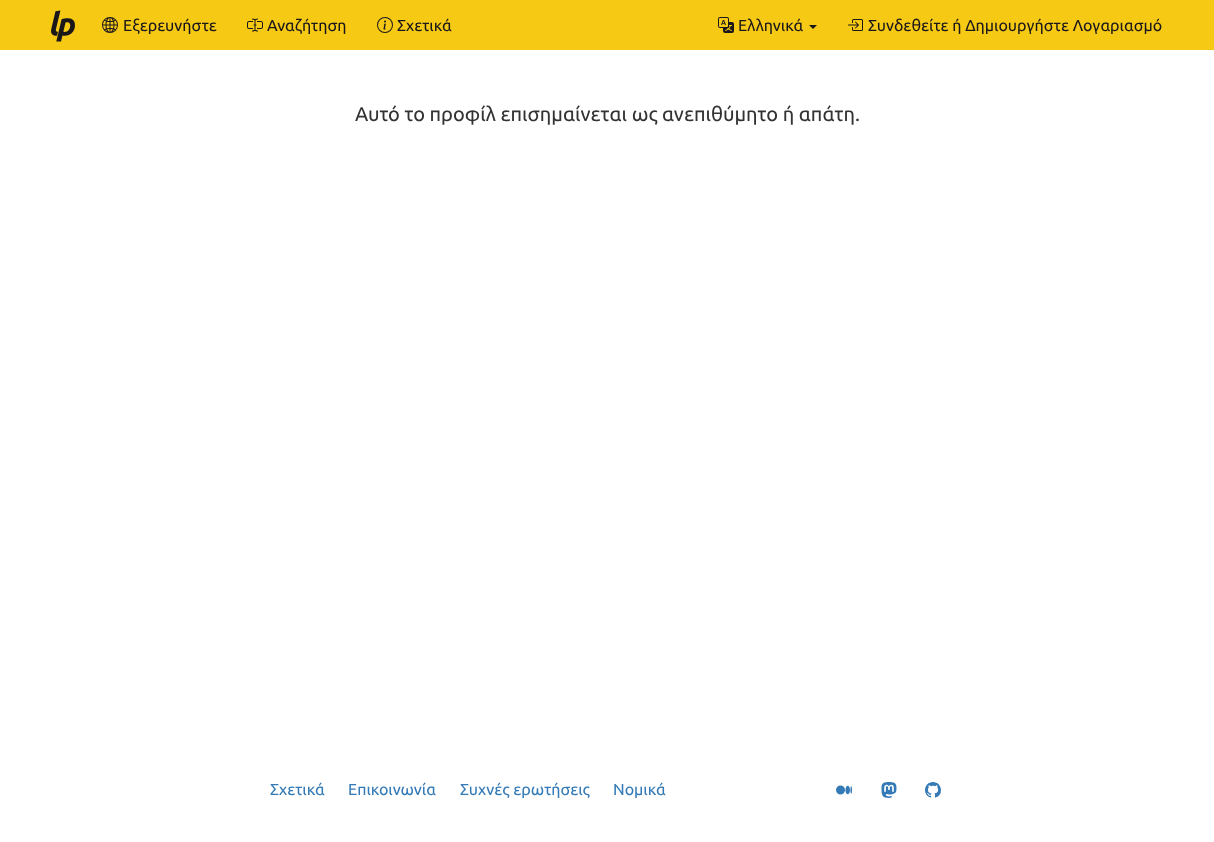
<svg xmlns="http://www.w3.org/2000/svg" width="1214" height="842">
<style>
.a{font:16px Ubuntu;fill:#1a171b}
.b{font:20px Ubuntu;fill:#333}
.c{font:16px Ubuntu;fill:#337ab7}
</style>
<rect width="100%" height="100%" fill="#fff"/>
<path fill="#f6c915" d="M0 0h1214v50H0z"/>
<image href="1.png" x="51" y="10" width="24" height="32"/>
<image href="2.png" x="102" y="17" width="16" height="16"/>
<image href="3.png" x="247" y="18" width="16" height="14"/>
<image href="4.png" x="377" y="17" width="16" height="16"/>
<image href="5.png" x="718" y="17" width="16" height="16"/>
<path fill="#1a171b" d="M809 25h8l-4 4z"/>
<image href="6.png" x="848" y="19" width="15" height="12"/>
<image href="7.png" x="836" y="785" width="16" height="10"/>
<image href="8.png" x="881" y="782" width="16" height="16"/>
<image href="9.png" x="925" y="782" width="16" height="16"/>
<text class="a" x="123" y="31">Εξερευνήστε</text>
<text class="a" x="267" y="31">Αναζήτηση</text>
<text class="a" x="397" y="31">Σχετικά</text>
<text class="a" x="738" y="31">Ελληνικά</text>
<text class="a" x="868" y="31">Συνδεθείτε ή Δημιουργήστε Λογαριασμό</text>
<text class="b" x="355" y="121">Αυτό το προφίλ επισημαίνεται ως ανεπιθύμητο ή απάτη.</text>
<text class="c" x="270" y="795">Σχετικά</text>
<text class="c" x="348" y="795">Επικοινωνία</text>
<text class="c" x="460" y="795">Συχνές ερωτήσεις</text>
<text class="c" x="613" y="795">Νομικά</text>
</svg>
